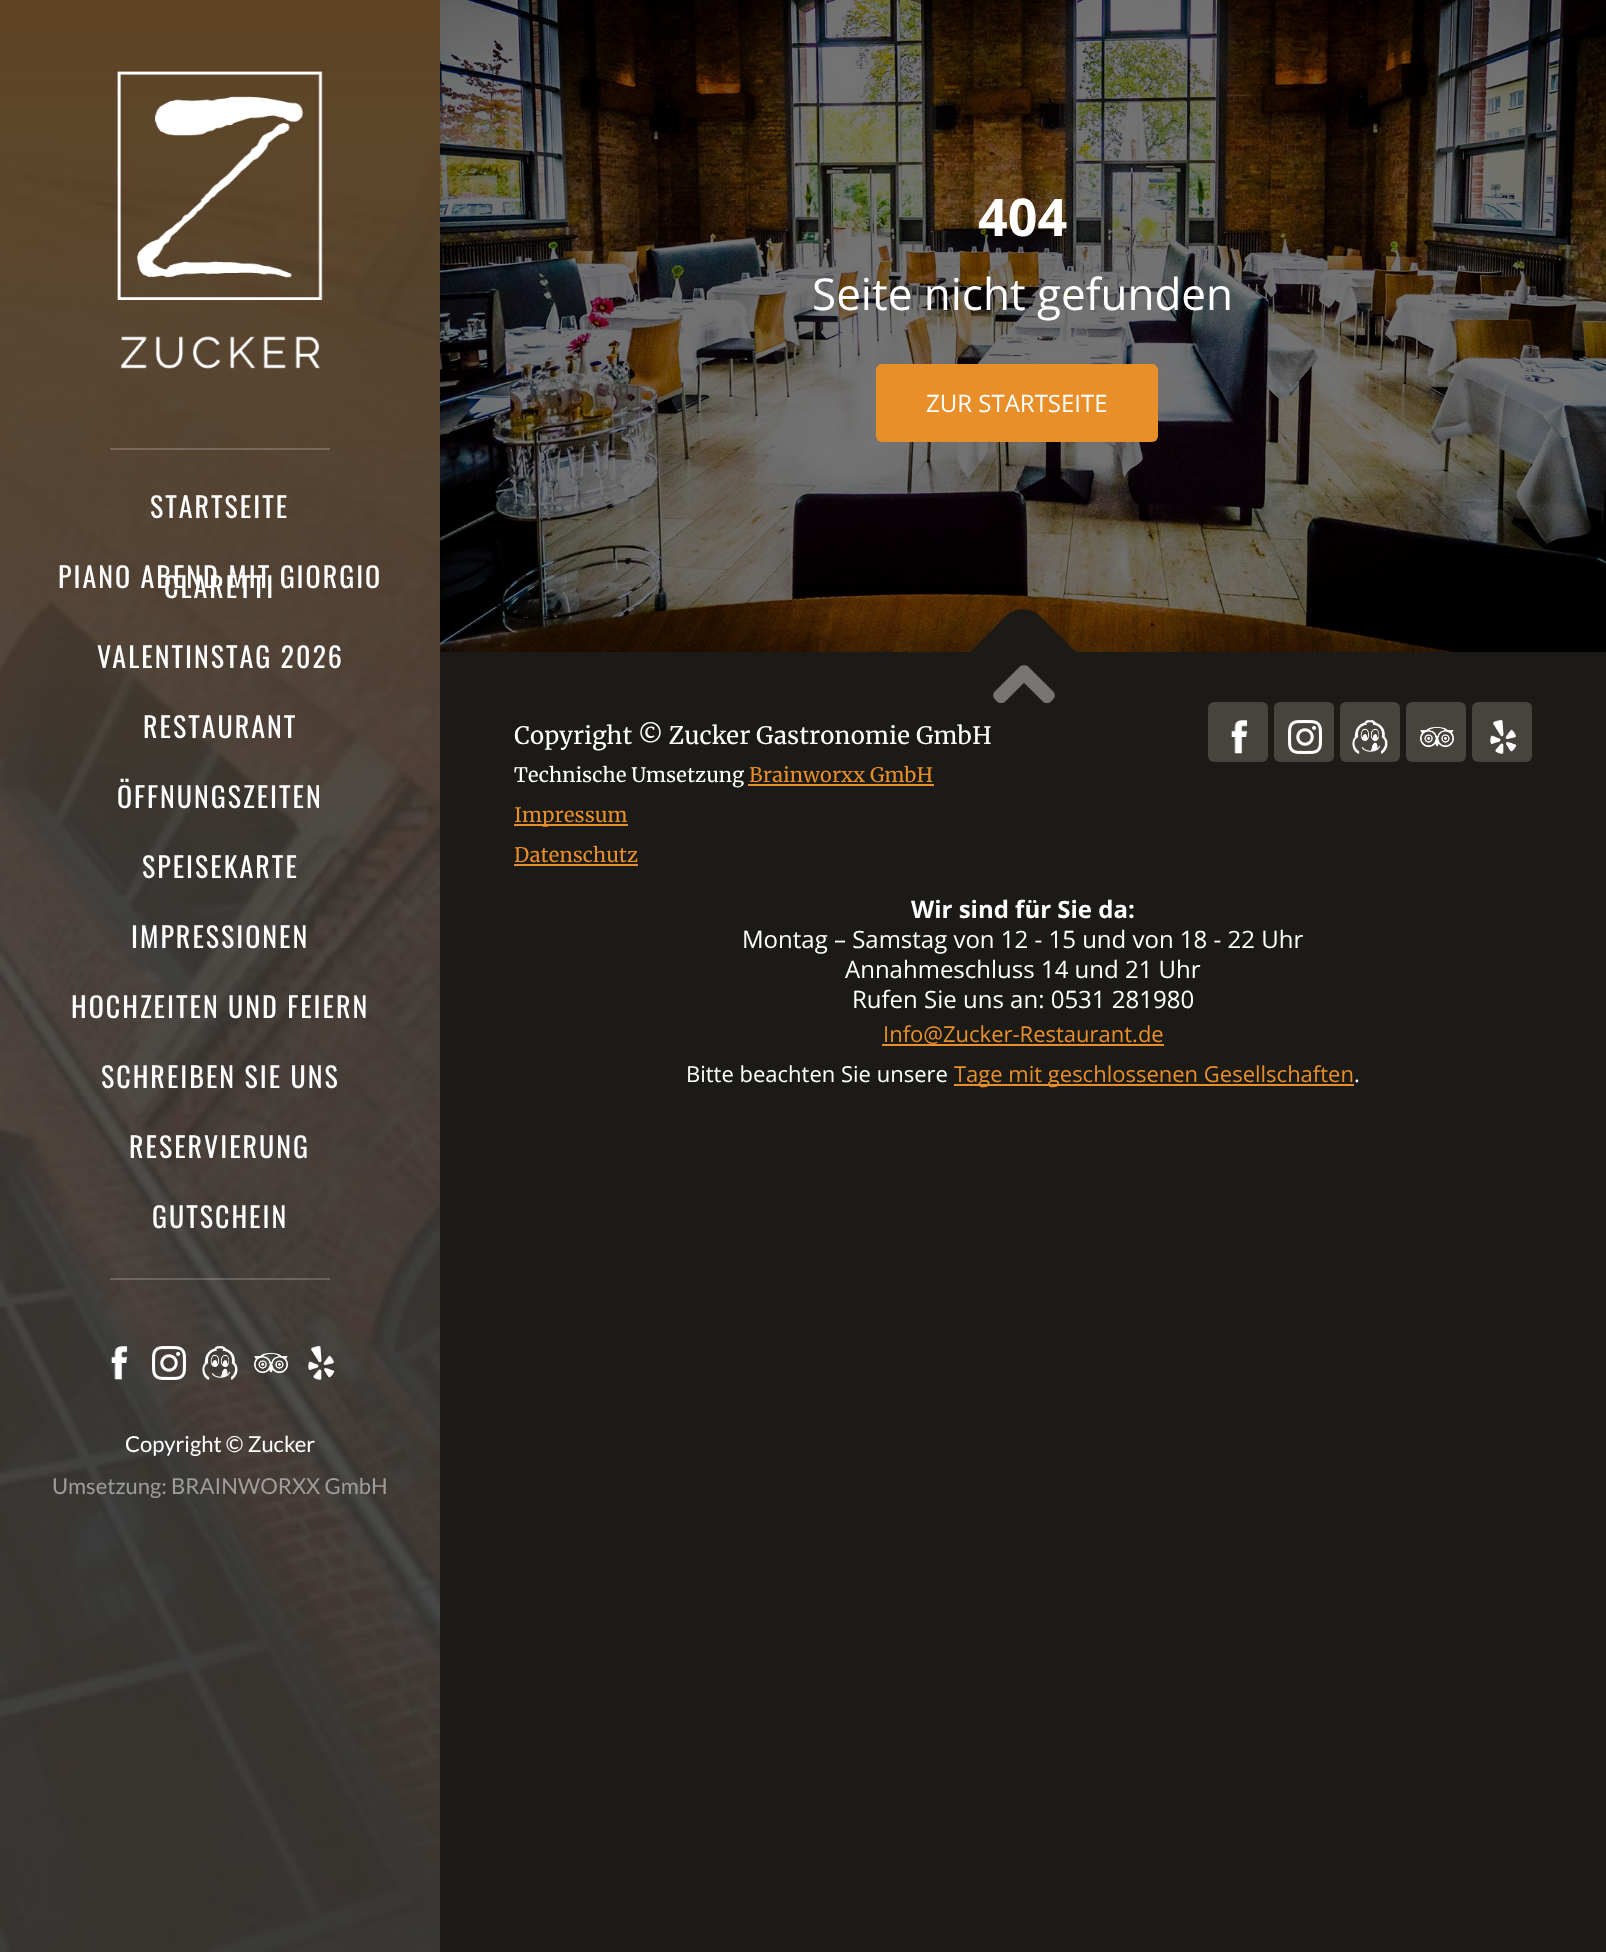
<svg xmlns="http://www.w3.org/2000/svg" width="1606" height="1952">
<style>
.a{font:bold 52px Open Sans;fill:#fff}
.b{font:44px Open Sans;fill:#fff}
.c{font:24px Open Sans;fill:#fff}
.d{font:28px Oswald;letter-spacing:2px;fill:#fff}
.e{font:22px Lato;fill:#fff}
.f{font:22px Lato;fill:#9f9d9b}
.g{font:24px Merriweather;fill:#fff}
.h{font:20px Merriweather;fill:#fff}
.i{font:20px Merriweather;fill:#e88f2a}
.j{font:bold 24px Open Sans;fill:#fff}
.k{font:22px Open Sans;fill:#e88f2a}
.l{font:22px Open Sans;fill:#fff}
</style>
<rect width="100%" height="100%" fill="#1c1a17"/>
<image href="1.png" x="440" y="0" width="1166" height="652"/>
<rect fill="#e88f2a" x="876" y="364" width="282" height="78" rx="6"/>
<image href="2.png" x="0" y="0" width="440" height="1952"/>
<image href="3.png" x="117" y="71" width="206" height="298"/>
<path fill="#ffffff33" d="M110 448h220v2H110z"/>
<path fill="#ffffff33" d="M110 1278h220v2H110z"/>
<image href="4.png" x="111" y="1346" width="17" height="34"/>
<image href="5.png" x="152" y="1346" width="34" height="34"/>
<image href="6.png" x="202" y="1346" width="36" height="34"/>
<image href="7.png" x="254" y="1352" width="34" height="22"/>
<image href="8.png" x="308" y="1346" width="27" height="34"/>
<path fill="#1c1a17" d="M1040 616l51 51c9 9 9 25 0 34l-51 51c-9 9-25 9-34 0l-51-51c-9-9-9-25 0-34l51-51c9-9 25-9 34 0z"/>
<image href="9.png" x="993" y="665" width="62" height="39"/>
<path fill="#e88f2a" d="M748 784h186v2H748z"/>
<path fill="#e88f2a" d="M514 824h114v2H514z"/>
<path fill="#e88f2a" d="M514 864h124v2H514z"/>
<rect fill="#47443e" x="1208" y="702" width="60" height="60" rx="6"/>
<image href="10.png" x="1231" y="720" width="17" height="34"/>
<rect fill="#47443e" x="1274" y="702" width="60" height="60" rx="6"/>
<image href="11.png" x="1288" y="720" width="34" height="34"/>
<rect fill="#47443e" x="1340" y="702" width="60" height="60" rx="6"/>
<image href="12.png" x="1352" y="720" width="36" height="34"/>
<rect fill="#47443e" x="1406" y="702" width="60" height="60" rx="6"/>
<image href="13.png" x="1420" y="726" width="34" height="22"/>
<rect fill="#47443e" x="1472" y="702" width="60" height="60" rx="6"/>
<image href="14.png" x="1490" y="720" width="27" height="34"/>
<path fill="#e88f2a" d="M882 1044h282v2H882z"/>
<path fill="#e88f2a" d="M954 1084h400v2H954z"/>
<text class="a" x="978" y="236">404</text>
<text class="b" x="812" y="310">Seite nicht gefunden</text>
<text class="c" x="926" y="412">ZUR STARTSEITE</text>
<text class="d" x="150" y="518">STARTSEITE</text>
<text class="d" x="58" y="588">PIANO ABEND MIT GIORGIO</text>
<text class="d" x="164" y="598">CLARETTI</text>
<text class="d" x="97" y="668">VALENTINSTAG 2026</text>
<text class="d" x="143" y="738">RESTAURANT</text>
<text class="d" x="117" y="808">ÖFFNUNGSZEITEN</text>
<text class="d" x="142" y="878">SPEISEKARTE</text>
<text class="d" x="131" y="948">IMPRESSIONEN</text>
<text class="d" x="71" y="1018">HOCHZEITEN UND FEIERN</text>
<text class="d" x="101" y="1088">SCHREIBEN SIE UNS</text>
<text class="d" x="129" y="1158">RESERVIERUNG</text>
<text class="d" x="152" y="1228">GUTSCHEIN</text>
<text class="e" x="125" y="1452">Copyright © Zucker</text>
<text class="f" x="52" y="1494">Umsetzung: BRAINWORXX GmbH</text>
<text class="g" x="514" y="744">Copyright © Zucker Gastronomie GmbH</text>
<text class="h" x="514" y="782">Technische Umsetzung</text>
<text class="i" x="749" y="782">Brainworxx GmbH</text>
<text class="i" x="514" y="822">Impressum</text>
<text class="i" x="514" y="862">Datenschutz</text>
<text class="j" x="911" y="918">Wir sind für Sie da:</text>
<text class="c" x="742" y="948">Montag – Samstag von 12 - 15 und von 18 - 22 Uhr</text>
<text class="c" x="845" y="978">Annahmeschluss 14 und 21 Uhr</text>
<text class="c" x="852" y="1008">Rufen Sie uns an: 0531 281980</text>
<text class="k" x="883" y="1042">Info@Zucker-Restaurant.de</text>
<text class="l" x="686" y="1082">Bitte beachten Sie unsere</text>
<text class="k" x="954" y="1082">Tage mit geschlossenen Gesellschaften</text>
<text class="l" x="1354" y="1082">.</text>
</svg>
